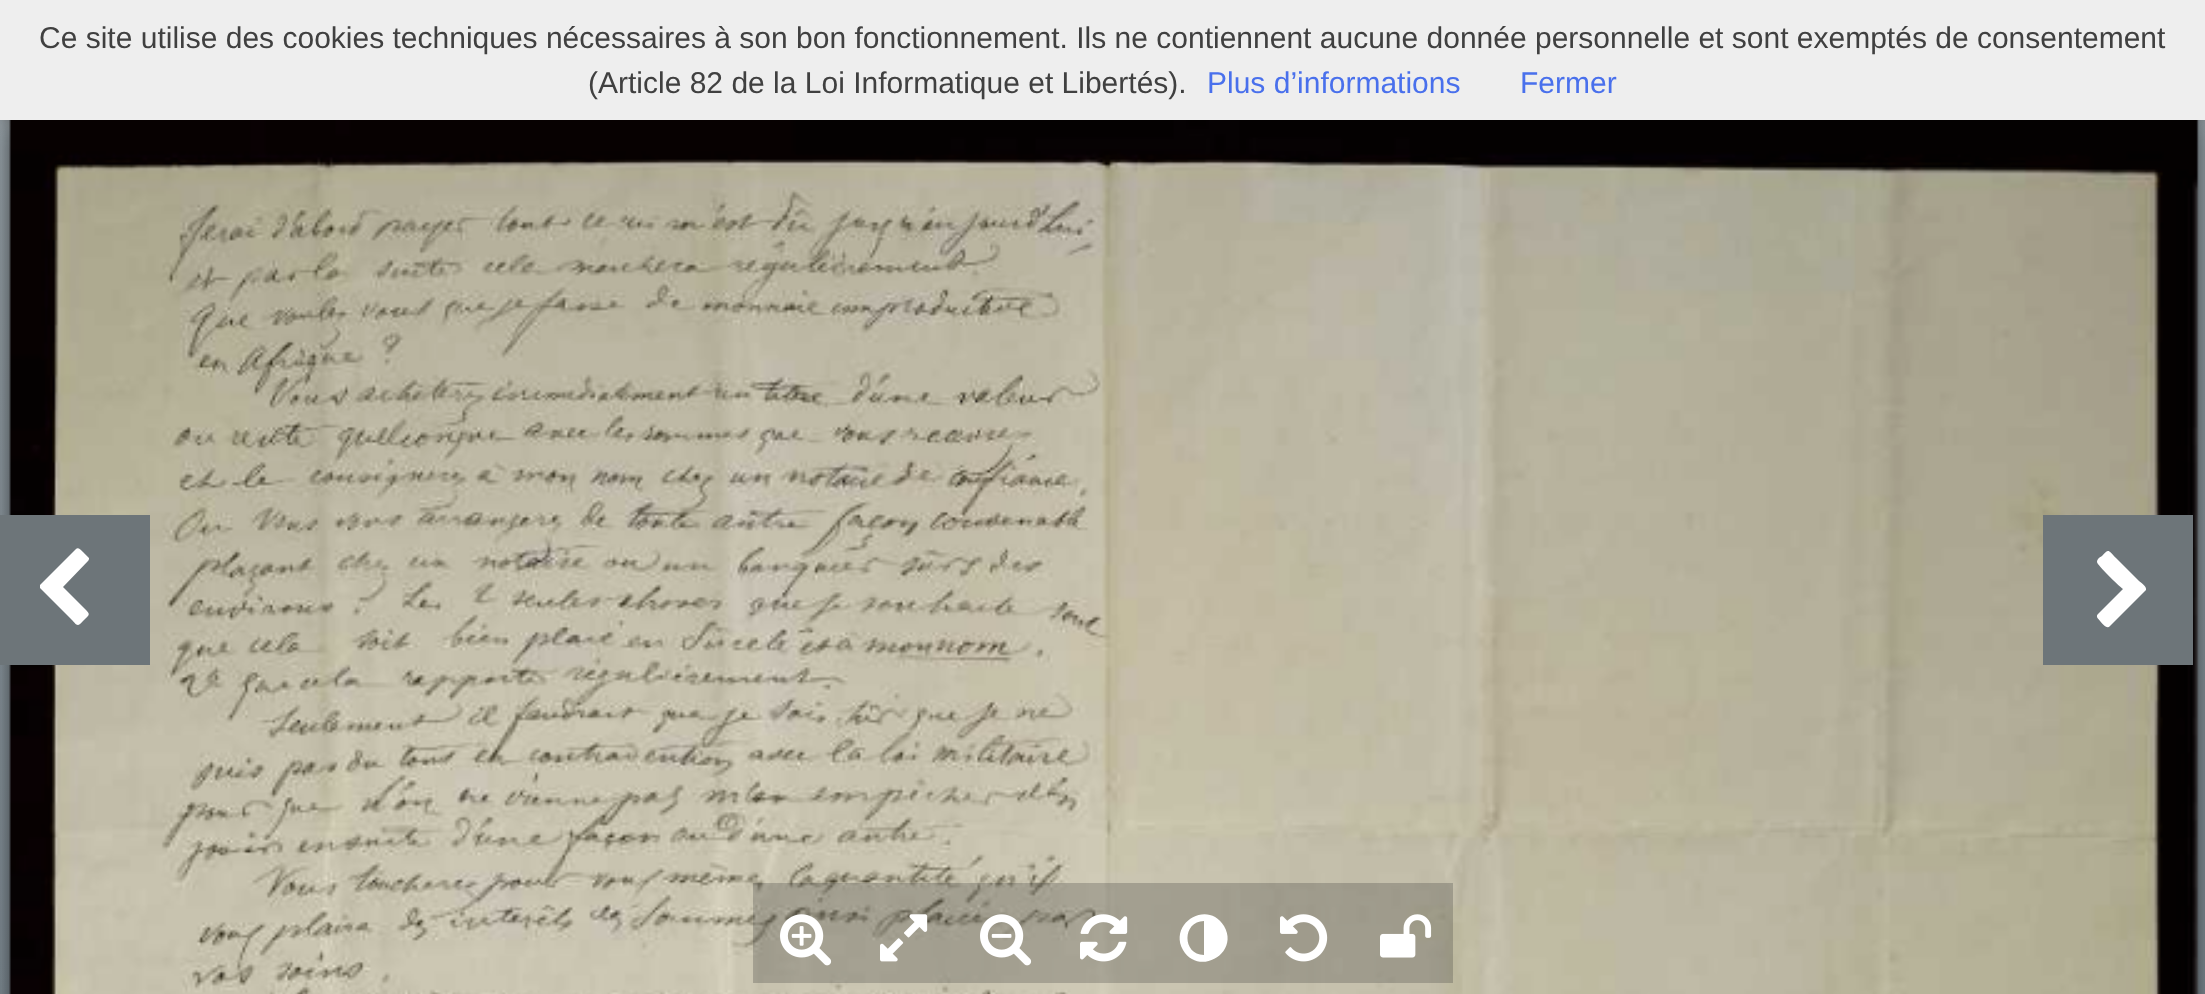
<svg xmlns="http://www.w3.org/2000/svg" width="2205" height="994">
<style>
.a{font:30px Liberation Sans;fill:#404040}
.b{font:30px Liberation Sans;fill:#4970ec}
</style>
<defs>
<linearGradient id="g1" gradientUnits="userSpaceOnUse" x1="1103" y1="0" x2="1103" y2="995"><stop offset="0" stop-color="#a4afb5"/><stop offset="1" stop-color="#88959e"/></linearGradient>
</defs>
<rect width="100%" height="100%" fill="#fff"/>
<path fill="url(#g1)" d="M0 120h2205v874H0z"/>
<path fill="#5f5f60" filter="blur(10px)" d="M0 0h2205v118H0z"/>
<image href="1.png" x="0" y="120" width="2205" height="874"/>
<path fill="#6d7579" d="M0 515h150v150H0z"/>
<path fill="#fff" d="M88 561l-25 26l21 21c7 7 6 6-1 13c-6 7-6 4-13-3l-30-30v-3l36-36c2-2 5 1 7 3l6 6c0 1 0 2-1 3z"/>
<path fill="#6d7579" d="M2043 515h150v150H2043z"/>
<path fill="#fff" d="M2145 591l-35 35c-3 4-8-3-10-5c-1-2-5-4-2-7l25-25c-4-3-26-24-26-27c0-3 3-5 5-6c7-8 6-6 14 2l23 23c1 1 8 5 7 9z"/>
<path fill="#31313140" d="M753 883h100v100H753z"/>
<image href="2.png" x="780" y="914" width="52" height="52"/>
<path fill="#31313140" d="M853 883h100v100H853z"/>
<image href="3.png" x="880" y="914" width="48" height="48"/>
<path fill="#31313140" d="M953 883h100v100H953z"/>
<image href="4.png" x="980" y="914" width="52" height="52"/>
<path fill="#31313140" d="M1053 883h100v100H1053z"/>
<image href="5.png" x="1080" y="914" width="48" height="48"/>
<path fill="#31313140" d="M1153 883h100v100H1153z"/>
<path fill="#fff" d="M1204 955v-34c-22 0-22 34 0 34zm20-29c16 27-25 51-41 24c-15-27 25-51 41-24z"/>
<path fill="#31313140" d="M1253 883h100v100H1253z"/>
<image href="6.png" x="1280" y="914" width="48" height="48"/>
<path fill="#31313140" d="M1353 883h100v100H1353z"/>
<image href="7.png" x="1380" y="914" width="52" height="44"/>
<path fill="#eee" d="M0 0h2205v120H0z"/>
<text class="a" x="39" y="48">Ce site utilise des cookies techniques nécessaires à son bon fonctionnement. Ils ne contiennent aucune donnée personnelle et sont exemptés de consentement</text>
<text class="a" x="588" y="93">(Article 82 de la Loi Informatique et Libertés).</text>
<text class="b" x="1207" y="93">Plus d’informations</text>
<text class="b" x="1520" y="93">Fermer</text>
</svg>
